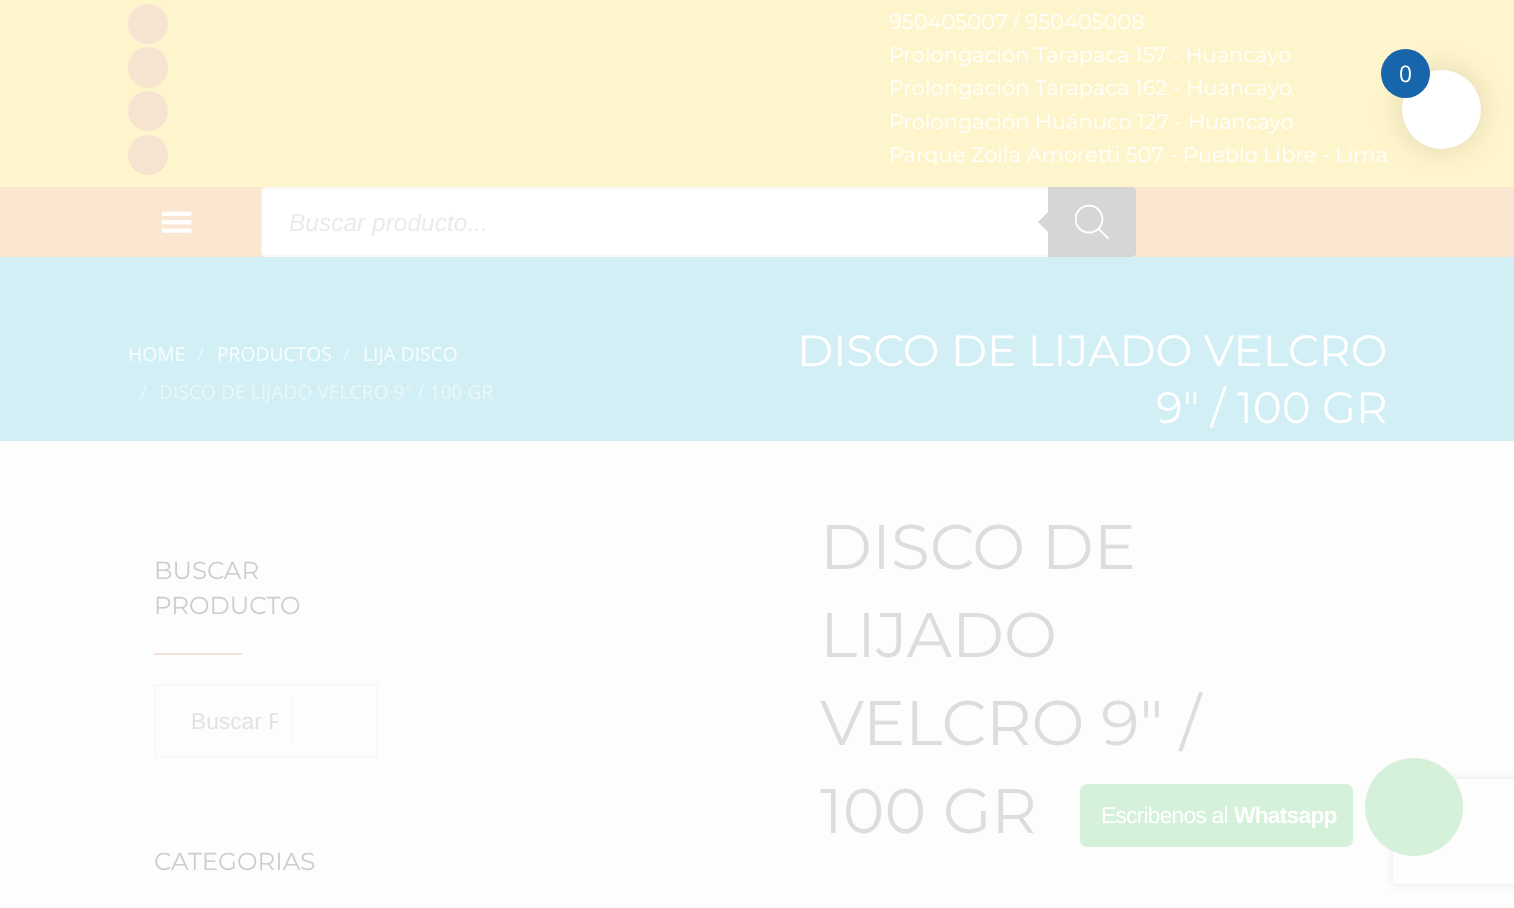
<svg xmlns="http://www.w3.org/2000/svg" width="1514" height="908">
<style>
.a{font:21px Montserrat;fill:#fff}
.b{font:italic 24.5px Liberation Sans;fill:#ebebeb}
.c{font:19.25px Open Sans;fill:#f8fdfe}
.d{font:19.25px Open Sans;fill:#e9f7fa}
.e{font:43.75px Montserrat;fill:#fff}
.f{font:24.5px Montserrat;fill:#cdcdcd}
.g{font:22.75px Liberation Sans;fill:#e3e3e3}
.h{font:63px Montserrat;fill:#ddd}
.i{font:22.75px Open Sans;fill:#fff}
.j{font:22.75px Liberation Sans;letter-spacing:-0.75px;fill:#fff}
.k{font:bold 22.75px Liberation Sans;letter-spacing:-0.75px;fill:#fff}
</style>
<defs>
<clipPath id="clip1"><path d="M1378 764h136v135h-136zm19 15h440c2 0 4 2 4 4v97c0 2-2 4-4 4h-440c-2 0-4-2-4-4v-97c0-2 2-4 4-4z" clip-rule="evenodd"/></clipPath>
<clipPath id="clip2"><path d="M191 709h87v26H191z"/></clipPath>
</defs>
<rect width="100%" height="100%" fill="#fdfdfd"/>
<path fill="#fff5cc" d="M0 0h1514v187H0z"/>
<circle fill="#f6e4d0" cx="148" cy="24" r="20"/>
<rect fill="#f6e4d0" x="128" y="47" width="40" height="41" rx="20"/>
<circle fill="#f6e4d0" cx="148" cy="111" r="20"/>
<circle fill="#f6e4d0" cx="148" cy="155" r="20"/>
<path fill="#fff7d6" d="M128 180h1260v2H128z"/>
<path fill="#fbe6d1" d="M0 187h1514v70H0z"/>
<image href="1.png" x="162" y="211" width="30" height="22"/>
<rect fill="#fff" stroke="#f8f8f8" stroke-width="2" x="262" y="188" width="873" height="68" rx="4"/>
<path fill="#d6d6d6" d="M1048 187h84c2 0 4 2 4 4v62c0 2-2 4-4 4h-84z"/>
<path fill="#d6d6d6" d="M1052 208v28l-14-14z"/>
<image href="2.png" x="1075" y="204" width="35" height="36"/>
<path fill="#d3eff6" d="M0 257h1514v184H0z"/>
<path fill="#f5e0d6" d="M154 653h88v2H154z"/>
<path fill="none" stroke="#f8f8f8" stroke-width="2" d="M155 685h222v72H155z"/>
<path fill="#f8f8f8" d="M291 700h2v42H291z"/>
<rect fill="#0000001a" filter="blur(13px)" x="1398" y="67" width="86" height="85" rx="42.5"/>
<circle fill="#fff" cx="1441.5" cy="109.5" r="39.5"/>
<circle fill="#1766ac" cx="1405.5" cy="73.5" r="24.5"/>
<rect fill="#d5f1d9" x="1080" y="784" width="273" height="63" rx="7"/>
<g clip-path="url(#clip1)">
<rect fill="#e6e6e6" filter="blur(4.5px)" x="1393" y="779" width="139" height="105" rx="4"/>
</g>
<circle fill="#d5f1d9" cx="1414" cy="807" r="49"/>
<text class="a" x="889" y="29">950405007 / 950405008</text>
<text class="a" x="889" y="62">Prolongación Tarapaca 157 - Huancayo</text>
<text class="a" x="889" y="95">Prolongación Tarapaca 162 - Huancayo</text>
<text class="a" x="889" y="129">Prolongación Huánuco 127 - Huancayo</text>
<text class="a" x="889" y="162">Parque Zoila Amoretti 507 - Pueblo Libre - Lima</text>
<text class="b" x="289" y="231">Buscar producto...</text>
<text class="c" x="128" y="361">HOME</text>
<text class="d" x="197" y="361">/</text>
<text class="c" x="217" y="361">PRODUCTOS</text>
<text class="d" x="343" y="361">/</text>
<text class="c" x="363" y="361">LIJA DISCO</text>
<text class="d" x="140" y="399">/</text>
<text class="d" x="159" y="399">DISCO DE LIJADO VELCRO 9″ / 100 GR</text>
<text class="e" x="797" y="366">DISCO DE LIJADO VELCRO</text>
<text class="e" x="1156" y="423">9″ / 100 GR</text>
<text class="f" x="154" y="579">BUSCAR</text>
<text class="f" x="154" y="614">PRODUCTO</text>
<g clip-path="url(#clip2)">
<text class="g" x="191" y="729">Buscar P</text>
</g>
<text class="f" x="154" y="870">CATEGORIAS</text>
<text class="h" x="820" y="569">DISCO DE</text>
<text class="h" x="820" y="657">LIJADO</text>
<text class="h" x="820" y="745">VELCRO 9″ /</text>
<text class="h" x="820" y="833">100 GR</text>
<text class="i" x="1399" y="82">0</text>
<text class="j" x="1101" y="823">Escribenos al</text>
<text class="k" x="1234" y="823">Whatsapp</text>
</svg>
